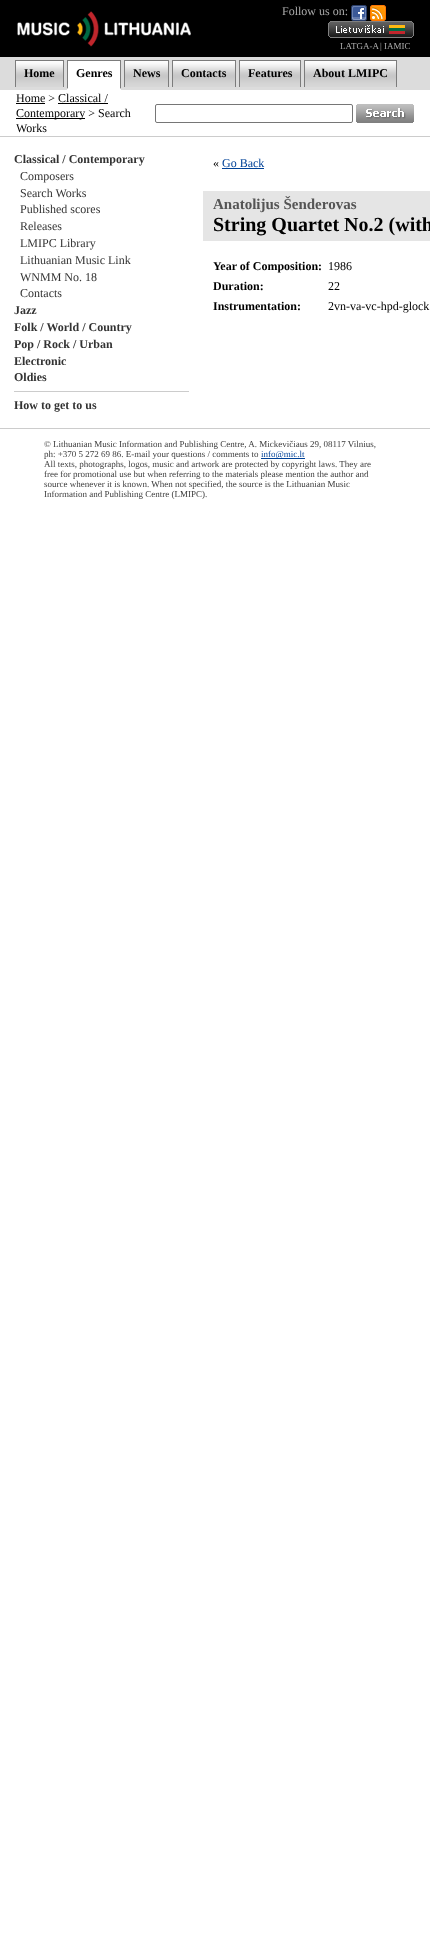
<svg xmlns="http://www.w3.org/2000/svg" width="430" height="1949">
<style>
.a{font:12px Liberation Serif;fill:#aaa}
.b{font:9px Liberation Serif;fill:#aaa}
.c{font:bold 12px Liberation Serif;fill:#000}
.d{font:12px Liberation Serif;fill:#000}
.e{font:bold 12px Liberation Serif;fill:#333}
.f{font:12px Liberation Serif;fill:#333}
.g{font:12px Liberation Serif;fill:#004298}
.h{font:bold 15px Liberation Serif;fill:#555}
.i{font:bold 20px Liberation Serif;fill:#000}
.j{font:9px Liberation Serif;fill:#404040}
.k{font:9px Liberation Serif;fill:#004298}
</style>
<rect width="100%" height="100%" fill="#fff"/>
<path fill="#000" d="M0 0h430v57H0z"/>
<image href="1.png" x="17" y="11" width="174" height="36"/>
<image href="2.png" x="351" y="5" width="16" height="16"/>
<image href="3.png" x="370" y="5" width="16" height="16"/>
<image href="4.png" x="328" y="21" width="86" height="17"/>
<path fill="#dcdcdc" d="M0 57h430v33H0z"/>
<image href="5.png" x="16" y="61" width="47" height="26"/>
<path fill="#7c7c7c" d="M15 60h49v1H15z"/>
<path fill="#7c7c7c" d="M63 60h1v27H63z"/>
<path fill="#7c7c7c" d="M15 60h1v27H15z"/>
<path fill="#fff" d="M68 61h52v26H68z"/>
<path fill="#7c7c7c" d="M67 60h54v1H67z"/>
<path fill="#7c7c7c" d="M120 60h1v27H120z"/>
<path fill="#7c7c7c" d="M67 60h1v27H67z"/>
<image href="6.png" x="125" y="61" width="43" height="26"/>
<path fill="#7c7c7c" d="M124 60h45v1H124z"/>
<path fill="#7c7c7c" d="M168 60h1v27H168z"/>
<path fill="#7c7c7c" d="M124 60h1v27H124z"/>
<image href="7.png" x="173" y="61" width="62" height="26"/>
<path fill="#7c7c7c" d="M172 60h64v1H172z"/>
<path fill="#7c7c7c" d="M235 60h1v27H235z"/>
<path fill="#7c7c7c" d="M172 60h1v27H172z"/>
<image href="8.png" x="240" y="61" width="60" height="26"/>
<path fill="#7c7c7c" d="M239 60h62v1H239z"/>
<path fill="#7c7c7c" d="M300 60h1v27H300z"/>
<path fill="#7c7c7c" d="M239 60h1v27H239z"/>
<image href="9.png" x="305" y="61" width="91" height="26"/>
<path fill="#7c7c7c" d="M304 60h93v1H304z"/>
<path fill="#7c7c7c" d="M396 60h1v27H396z"/>
<path fill="#7c7c7c" d="M304 60h1v27H304z"/>
<path fill="#fff" d="M67 87h54v3H67z"/>
<image href="10.png" x="67" y="87" width="1" height="2"/>
<image href="10.png" x="120" y="87" width="1" height="2"/>
<path fill="#000" d="M16 103h29v1H16z"/>
<path fill="#000" d="M58 103h50v1H58z"/>
<path fill="#000" d="M16 118h69v1H16z"/>
<rect fill="none" stroke="#767676" x="155.5" y="104.5" width="197" height="18" rx="1.5"/>
<image href="11.png" x="356" y="104" width="58" height="19"/>
<path fill="#ccc" d="M0 136h430v1H0z"/>
<path fill="#ccc" d="M14 391h175v1H14z"/>
<path fill="#004298" d="M222 168h42v1H222z"/>
<path fill="#e5e5e5" d="M203 191h227v50H203z"/>
<path fill="#ccc" d="M0 428h430v1H0z"/>
<path fill="#004298" d="M261 458h44v1H261z"/>
<text class="a" x="282" y="15">Follow us on:</text>
<text class="b" x="340" y="49">LATGA-A</text>
<text class="b" x="380" y="49">| IAMIC</text>
<text class="c" x="24" y="77">Home</text>
<text class="c" x="76" y="77">Genres</text>
<text class="c" x="133" y="77">News</text>
<text class="c" x="181" y="77">Contacts</text>
<text class="c" x="248" y="77">Features</text>
<text class="c" x="313" y="77">About LMIPC</text>
<text class="d" x="16" y="102">Home &gt; Classical /</text>
<text class="d" x="16" y="117">Contemporary &gt; Search</text>
<text class="d" x="16" y="132">Works</text>
<text class="e" x="14" y="163">Classical / Contemporary</text>
<text class="f" x="20" y="180">Composers</text>
<text class="f" x="20" y="197">Search Works</text>
<text class="f" x="20" y="213">Published scores</text>
<text class="f" x="20" y="230">Releases</text>
<text class="f" x="20" y="247">LMIPC Library</text>
<text class="f" x="20" y="264">Lithuanian Music Link</text>
<text class="f" x="20" y="281">WNMM No. 18</text>
<text class="f" x="20" y="297">Contacts</text>
<text class="e" x="14" y="314">Jazz</text>
<text class="e" x="14" y="331">Folk / World / Country</text>
<text class="e" x="14" y="348">Pop / Rock / Urban</text>
<text class="e" x="14" y="365">Electronic</text>
<text class="e" x="14" y="381">Oldies</text>
<text class="e" x="14" y="409">How to get to us</text>
<text class="d" x="213" y="167">«</text>
<text class="g" x="222" y="167">Go Back</text>
<text class="h" x="213" y="209">Anatolijus Šenderovas</text>
<text class="i" x="213" y="231">String Quartet No.2 (with</text>
<text class="c" x="213" y="270">Year of Composition:</text>
<text class="d" x="328" y="270">1986</text>
<text class="c" x="213" y="290">Duration:</text>
<text class="d" x="328" y="290">22</text>
<text class="c" x="213" y="310">Instrumentation:</text>
<text class="d" x="328" y="310">2vn-va-vc-hpd-glock</text>
<text class="j" x="44" y="447">© Lithuanian Music Information and Publishing Centre, A. Mickevičiaus 29, 08117 Vilnius,</text>
<text class="j" x="44" y="457">ph: +370 5 272 69 86. E-mail your questions / comments to</text>
<text class="k" x="261" y="457">info@mic.lt</text>
<text class="j" x="44" y="467">All texts, photographs, logos, music and artwork are protected by copyright laws. They are</text>
<text class="j" x="44" y="477">free for promotional use but when referring to the materials please mention the author and</text>
<text class="j" x="44" y="487">source whenever it is known. When not specified, the source is the Lithuanian Music</text>
<text class="j" x="44" y="497">Information and Publishing Centre (LMIPC).</text>
</svg>
